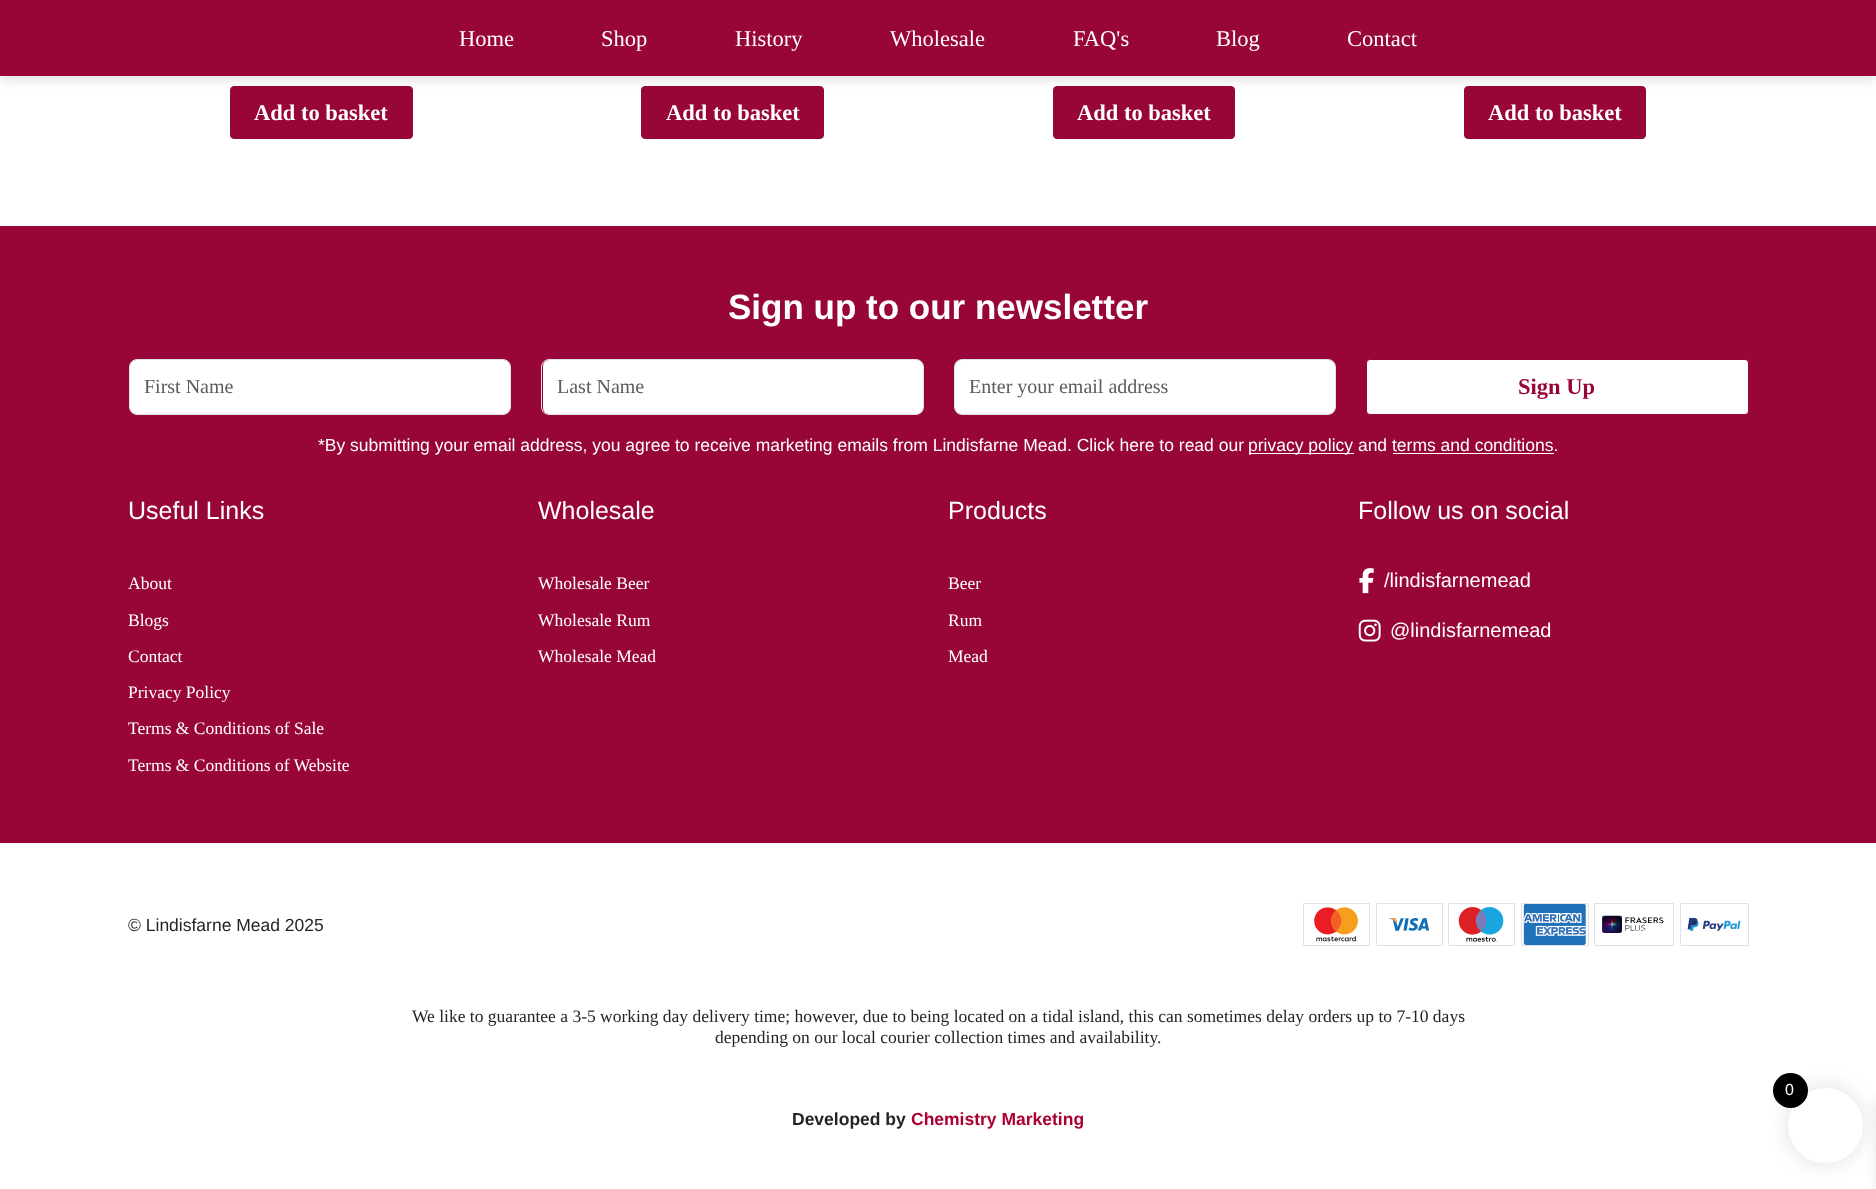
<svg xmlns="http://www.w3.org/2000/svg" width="1876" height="1189">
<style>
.a{font:22.5px Liberation Serif;fill:#fff}
.b{font:bold 22.5px Liberation Serif;fill:#fff}
.c{font:bold 35px Liberation Sans;fill:#fff}
.d{font:20px Liberation Serif;fill:#595c5f}
.e{font:bold 22.5px Liberation Serif;fill:#980539}
.f{font:17.5px Liberation Sans;fill:#fff}
.g{font:25px Liberation Sans;fill:#fff}
.h{font:17.5px Liberation Serif;fill:#fff}
.i{font:20px Liberation Sans;fill:#fff}
.j{font:17.5px Liberation Sans;fill:#212529}
.k{font:17.5px Liberation Serif;fill:#212529}
.l{font:bold 17.5px Liberation Sans;fill:#212529}
.m{font:bold 17.5px Liberation Sans;fill:#ab0032}
.n{font:16px Liberation Sans;fill:#fff}
</style>
<rect width="100%" height="100%" fill="#fff"/>
<rect fill="#980539" stroke="#980539" x="230.5" y="86.5" width="182" height="52" rx="3.5"/>
<rect fill="#980539" stroke="#980539" x="641.5" y="86.5" width="182" height="52" rx="3.5"/>
<rect fill="#980539" stroke="#980539" x="1053.5" y="86.5" width="181" height="52" rx="3.5"/>
<rect fill="#980539" stroke="#980539" x="1464.5" y="86.5" width="181" height="52" rx="3.5"/>
<path fill="#0000001a" filter="blur(5px)" d="M0 5h1876v76H0z"/>
<path fill="#980539" d="M0 0h1876v76H0z"/>
<path fill="#980539" d="M0 226h1876v617H0z"/>
<rect fill="#fff" x="130" y="360" width="380" height="54" rx="6"/>
<rect fill="none" stroke="#dee2e6" x="129.5" y="359.5" width="381" height="55" rx="7.5"/>
<rect fill="#fff" x="543" y="360" width="380" height="54" rx="6"/>
<rect fill="none" stroke="#dee2e6" x="541.5" y="359.5" width="382" height="55" rx="7.5"/>
<rect fill="#fff" x="955" y="360" width="380" height="54" rx="6"/>
<rect fill="none" stroke="#dee2e6" x="954.5" y="359.5" width="381" height="55" rx="7.5"/>
<rect fill="#fff" stroke="#980539" x="1366.5" y="359.5" width="382" height="55" rx="3.5"/>
<path fill="#fff" d="M1249 453h105v1H1249z"/>
<path fill="#fff" d="M1393 453h161v1H1393z"/>
<image href="1.png" x="1359" y="568" width="15" height="26"/>
<image href="2.png" x="1358" y="619" width="23" height="23"/>
<path fill="none" stroke="#dee2e6" d="M1303.5 903.5h66v42H1303.5z"/>
<path fill="none" stroke="#dee2e6" d="M1376.5 903.5h66v42H1376.5z"/>
<path fill="none" stroke="#dee2e6" d="M1448.5 903.5h66v42H1448.5z"/>
<path fill="none" stroke="#dee2e6" d="M1521.5 903.5h67v42H1521.5z"/>
<path fill="none" stroke="#dee2e6" d="M1594.5 903.5h79v42H1594.5z"/>
<path fill="none" stroke="#dee2e6" d="M1680.5 903.5h68v42H1680.5z"/>
<image href="3.png" x="1314" y="907" width="44" height="35"/>
<image href="4.png" x="1389" y="918" width="40" height="13"/>
<image href="5.png" x="1458" y="907" width="46" height="35"/>
<image href="6.png" x="1523" y="904" width="63" height="41"/>
<image href="7.png" x="1602" y="915" width="62" height="18"/>
<image href="8.png" x="1687" y="917" width="54" height="14"/>
<rect fill="#0000001a" filter="blur(9.5px)" x="1785" y="1085" width="80" height="80" rx="40"/>
<path fill="#0000001a" filter="blur(6px)" d="M1876 1100h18v89H1876z"/>
<circle fill="#fff" cx="1825.5" cy="1125.5" r="37.5"/>
<circle fill="#000" cx="1790.5" cy="1090.5" r="17.5"/>
<text class="a" x="459" y="46">Home</text>
<text class="a" x="601" y="46">Shop</text>
<text class="a" x="735" y="46">History</text>
<text class="a" x="890" y="46">Wholesale</text>
<text class="a" x="1073" y="46">FAQ's</text>
<text class="a" x="1216" y="46">Blog</text>
<text class="a" x="1347" y="46">Contact</text>
<text class="b" x="254" y="120">Add to basket</text>
<text class="b" x="666" y="120">Add to basket</text>
<text class="b" x="1077" y="120">Add to basket</text>
<text class="b" x="1488" y="120">Add to basket</text>
<text class="c" x="728" y="319">Sign up to our newsletter</text>
<text class="d" x="144" y="393">First Name</text>
<text class="d" x="557" y="393">Last Name</text>
<text class="d" x="969" y="393">Enter your email address</text>
<text class="e" x="1518" y="394">Sign Up</text>
<text class="f" x="318" y="451">*By submitting your email address, you agree to receive marketing emails from Lindisfarne Mead. Click here to read our</text>
<text class="f" x="1248" y="451">privacy policy and terms and conditions.</text>
<text class="g" x="128" y="519">Useful Links</text>
<text class="h" x="128" y="589">About</text>
<text class="h" x="128" y="626">Blogs</text>
<text class="h" x="128" y="662">Contact</text>
<text class="h" x="128" y="698">Privacy Policy</text>
<text class="h" x="128" y="734">Terms &amp; Conditions of Sale</text>
<text class="h" x="128" y="771">Terms &amp; Conditions of Website</text>
<text class="g" x="538" y="519">Wholesale</text>
<text class="h" x="538" y="589">Wholesale Beer</text>
<text class="h" x="538" y="626">Wholesale Rum</text>
<text class="h" x="538" y="662">Wholesale Mead</text>
<text class="g" x="948" y="519">Products</text>
<text class="h" x="948" y="589">Beer</text>
<text class="h" x="948" y="626">Rum</text>
<text class="h" x="948" y="662">Mead</text>
<text class="g" x="1358" y="519">Follow us on social</text>
<text class="i" x="1384" y="587">/lindisfarnemead</text>
<text class="i" x="1390" y="637">@lindisfarnemead</text>
<text class="j" x="128" y="931">© Lindisfarne Mead 2025</text>
<text class="k" x="412" y="1022">We like to guarantee a 3-5 working day delivery time; however, due to being located on a tidal island, this can sometimes delay orders up to 7-10 days</text>
<text class="k" x="715" y="1043">depending on our local courier collection times and availability.</text>
<text class="l" x="792" y="1125">Developed by</text>
<text class="m" x="911" y="1125">Chemistry Marketing</text>
<text class="n" x="1785" y="1095">0</text>
</svg>
